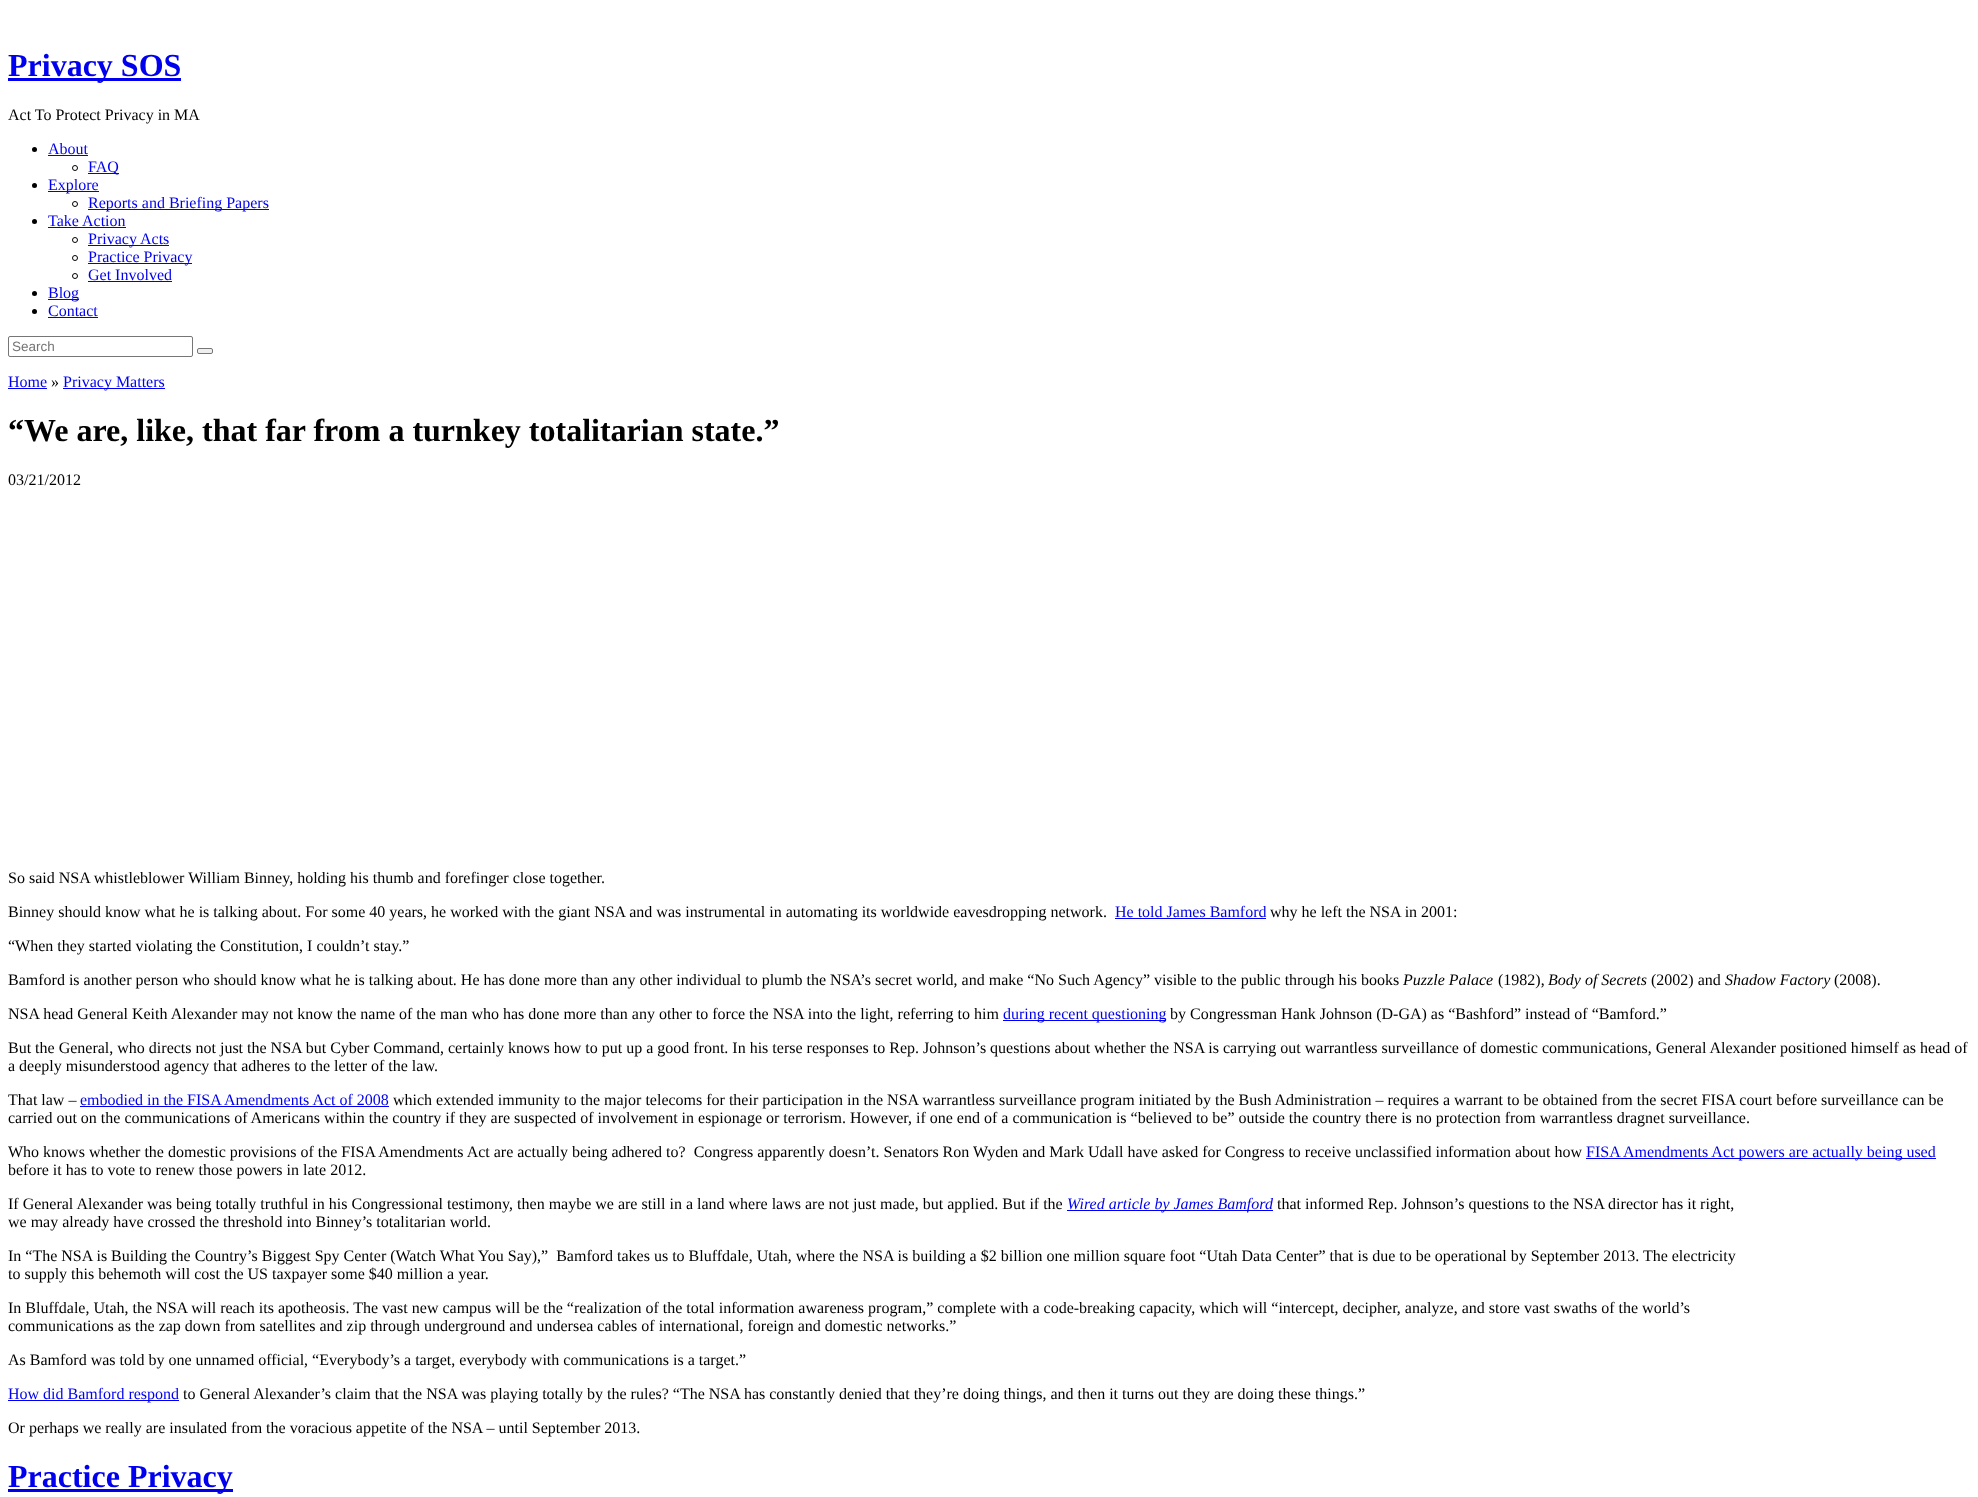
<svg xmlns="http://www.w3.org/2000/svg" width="1978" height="1497">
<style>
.a{font:bold 32px Liberation Serif;fill:#00e}
.b{font:16px Liberation Serif;fill:#000}
.c{font:16px Liberation Serif;fill:#00e}
.d{font:13.5px Liberation Sans;fill:#757575}
.e{font:bold 32px Liberation Serif;fill:#000}
.f{font:italic 16px Liberation Serif;fill:#000}
.g{font:italic 16px Liberation Serif;fill:#00e}
</style>
<rect width="100%" height="100%" fill="#fff"/>
<path fill="#00e" d="M8 78h173v3H8z"/>
<circle fill="#000" cx="34.5" cy="149.5" r="2.5"/>
<path fill="#00e" d="M48 155h40v1H48z"/>
<circle fill="none" stroke="#000" cx="75" cy="168" r="2.5"/>
<path fill="#00e" d="M88 173h31v1H88z"/>
<circle fill="#000" cx="34.5" cy="185.5" r="2.5"/>
<path fill="#00e" d="M48 191h51v1H48z"/>
<circle fill="none" stroke="#000" cx="75" cy="204" r="2.5"/>
<path fill="#00e" d="M88 209h181v1H88z"/>
<circle fill="#000" cx="34.5" cy="221.5" r="2.5"/>
<path fill="#00e" d="M48 227h78v1H48z"/>
<circle fill="none" stroke="#000" cx="75" cy="240" r="2.5"/>
<path fill="#00e" d="M88 245h81v1H88z"/>
<circle fill="none" stroke="#000" cx="75" cy="258" r="2.5"/>
<path fill="#00e" d="M88 263h104v1H88z"/>
<circle fill="none" stroke="#000" cx="75" cy="276" r="2.5"/>
<path fill="#00e" d="M88 281h84v1H88z"/>
<circle fill="#000" cx="34.5" cy="293.5" r="2.5"/>
<path fill="#00e" d="M48 299h31v1H48z"/>
<circle fill="#000" cx="34.5" cy="311.5" r="2.5"/>
<path fill="#00e" d="M48 317h50v1H48z"/>
<rect fill="none" stroke="#767676" x="8.5" y="336.5" width="184" height="20" rx="1.5"/>
<rect fill="#efefef" stroke="#767676" x="197.5" y="348.5" width="15" height="5" rx="1.5"/>
<path fill="#00e" d="M8 388h39v1H8z"/>
<path fill="#00e" d="M63 388h102v1H63z"/>
<path fill="#00e" d="M1115 918h151v1H1115z"/>
<path fill="#00e" d="M1003 1020h163v1H1003z"/>
<path fill="#00e" d="M80 1106h309v1H80z"/>
<path fill="#00e" d="M1586 1158h350v1H1586z"/>
<path fill="#00e" d="M1067 1210h206v1H1067z"/>
<path fill="#00e" d="M8 1400h171v1H8z"/>
<path fill="#00e" d="M8 1489h225v3H8z"/>
<text class="a" x="8" y="76">Privacy SOS</text>
<text class="b" x="8" y="120">Act To Protect Privacy in MA</text>
<text class="c" x="48" y="154">About</text>
<text class="c" x="88" y="172">FAQ</text>
<text class="c" x="48" y="190">Explore</text>
<text class="c" x="88" y="208">Reports and Briefing Papers</text>
<text class="c" x="48" y="226">Take Action</text>
<text class="c" x="88" y="244">Privacy Acts</text>
<text class="c" x="88" y="262">Practice Privacy</text>
<text class="c" x="88" y="280">Get Involved</text>
<text class="c" x="48" y="298">Blog</text>
<text class="c" x="48" y="316">Contact</text>
<text class="d" x="12" y="351">Search</text>
<text class="c" x="8" y="387">Home</text>
<text class="b" x="51" y="387">»</text>
<text class="c" x="63" y="387">Privacy Matters</text>
<text class="e" x="8" y="441">“We are, like, that far from a turnkey totalitarian state.”</text>
<text class="b" x="8" y="485">03/21/2012</text>
<text class="b" x="8" y="883">So said NSA whistleblower William Binney, holding his thumb and forefinger close together.</text>
<text class="b" x="8" y="917">Binney should know what he is talking about. For some 40 years, he worked with the giant NSA and was instrumental in automating its worldwide eavesdropping network.</text>
<text class="c" x="1115" y="917">He told James Bamford</text>
<text class="b" x="1270" y="917">why he left the NSA in 2001:</text>
<text class="b" x="8" y="951">“When they started violating the Constitution, I couldn’t stay.”</text>
<text class="b" x="8" y="985">Bamford is another person who should know what he is talking about. He has done more than any other individual to plumb the NSA’s secret world, and make “No Such Agency” visible to the public through his books</text>
<text class="f" x="1403" y="985">Puzzle Palace</text>
<text class="b" x="1498" y="985">(1982),</text>
<text class="f" x="1548" y="985">Body of Secrets</text>
<text class="b" x="1651" y="985">(2002) and</text>
<text class="f" x="1725" y="985">Shadow Factory</text>
<text class="b" x="1834" y="985">(2008).</text>
<text class="b" x="8" y="1019">NSA head General Keith Alexander may not know the name of the man who has done more than any other to force the NSA into the light, referring to him</text>
<text class="c" x="1003" y="1019">during recent questioning</text>
<text class="b" x="1170" y="1019">by Congressman Hank Johnson (D-GA) as “Bashford” instead of “Bamford.”</text>
<text class="b" x="8" y="1053">But the General, who directs not just the NSA but Cyber Command, certainly knows how to put up a good front. In his terse responses to Rep. Johnson’s questions about whether the NSA is carrying out warrantless surveillance of domestic communications, General Alexander positioned himself as head of</text>
<text class="b" x="8" y="1071">a deeply misunderstood agency that adheres to the letter of the law.</text>
<text class="b" x="8" y="1105">That law –</text>
<text class="c" x="80" y="1105">embodied in the FISA Amendments Act of 2008</text>
<text class="b" x="393" y="1105">which extended immunity to the major telecoms for their participation in the NSA warrantless surveillance program initiated by the Bush Administration – requires a warrant to be obtained from the secret FISA court before surveillance can be</text>
<text class="b" x="8" y="1123">carried out on the communications of Americans within the country if they are suspected of involvement in espionage or terrorism. However, if one end of a communication is “believed to be” outside the country there is no protection from warrantless dragnet surveillance.</text>
<text class="b" xml:space="preserve" x="8" y="1157">Who knows whether the domestic provisions of the FISA Amendments Act are actually being adhered to?  Congress apparently doesn’t. Senators Ron Wyden and Mark Udall have asked for Congress to receive unclassified information about how</text>
<text class="c" x="1586" y="1157">FISA Amendments Act powers are actually being used</text>
<text class="b" x="8" y="1175">before it has to vote to renew those powers in late 2012.</text>
<text class="b" x="8" y="1209">If General Alexander was being totally truthful in his Congressional testimony, then maybe we are still in a land where laws are not just made, but applied. But if the</text>
<text class="g" x="1067" y="1209">Wired article by James Bamford</text>
<text class="b" x="1277" y="1209">that informed Rep. Johnson’s questions to the NSA director has it right,</text>
<text class="b" x="8" y="1227">we may already have crossed the threshold into Binney’s totalitarian world.</text>
<text class="b" xml:space="preserve" x="8" y="1261">In “The NSA is Building the Country’s Biggest Spy Center (Watch What You Say),”  Bamford takes us to Bluffdale, Utah, where the NSA is building a $2 billion one million square foot “Utah Data Center” that is due to be operational by September 2013. The electricity</text>
<text class="b" x="8" y="1279">to supply this behemoth will cost the US taxpayer some $40 million a year.</text>
<text class="b" x="8" y="1313">In Bluffdale, Utah, the NSA will reach its apotheosis. The vast new campus will be the “realization of the total information awareness program,” complete with a code-breaking capacity, which will “intercept, decipher, analyze, and store vast swaths of the world’s</text>
<text class="b" x="8" y="1331">communications as the zap down from satellites and zip through underground and undersea cables of international, foreign and domestic networks.”</text>
<text class="b" x="8" y="1365">As Bamford was told by one unnamed official, “Everybody’s a target, everybody with communications is a target.”</text>
<text class="c" x="8" y="1399">How did Bamford respond</text>
<text class="b" x="183" y="1399">to General Alexander’s claim that the NSA was playing totally by the rules? “The NSA has constantly denied that they’re doing things, and then it turns out they are doing these things.”</text>
<text class="b" x="8" y="1433">Or perhaps we really are insulated from the voracious appetite of the NSA – until September 2013.</text>
<text class="a" x="8" y="1487">Practice Privacy</text>
</svg>
